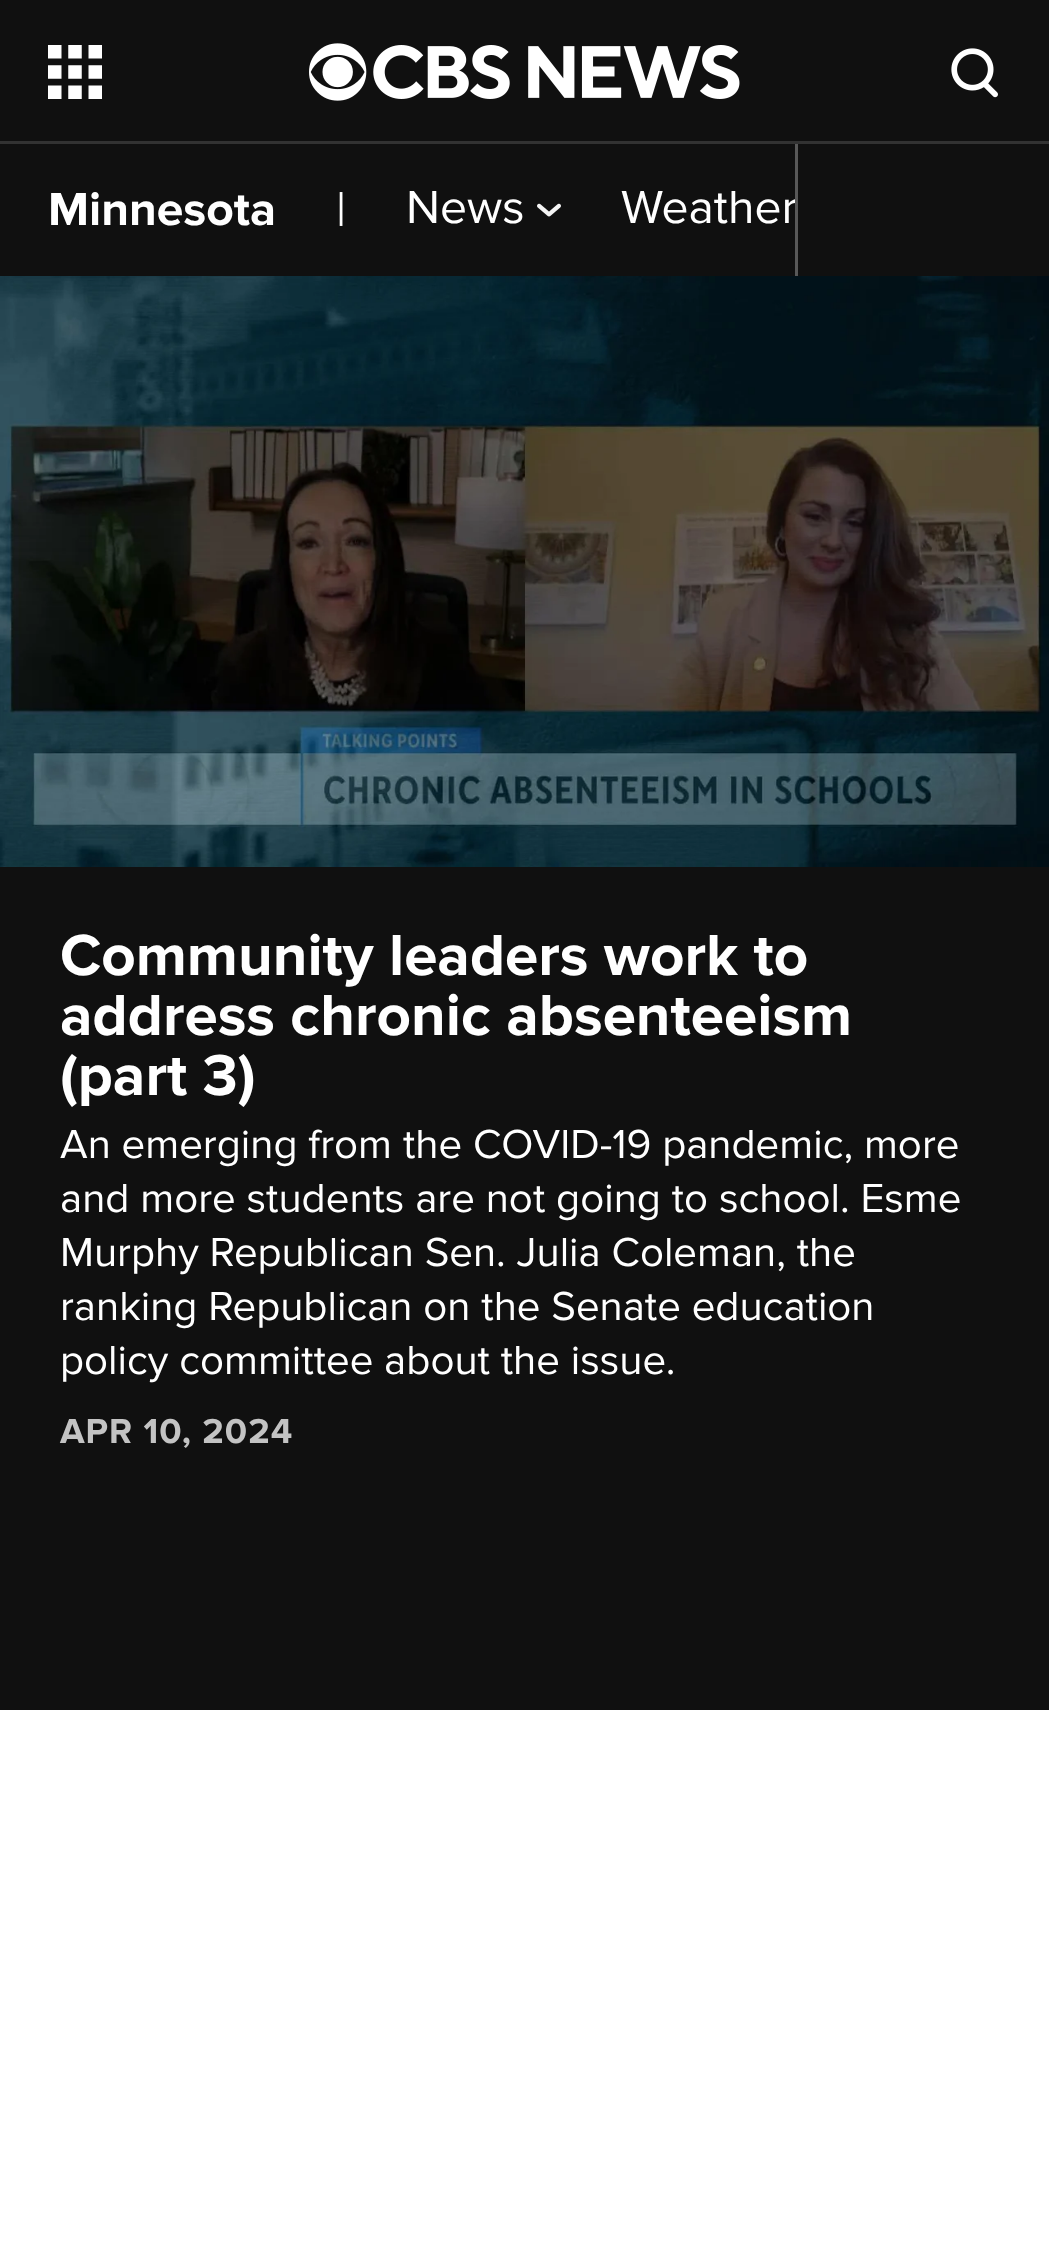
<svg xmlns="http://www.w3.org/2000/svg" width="1049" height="2267">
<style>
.a{font:bold 48px Proxima Nova;fill:#fff}
.b{font:48px Proxima Nova;fill:#fff}
.c{font:bold 60px Proxima Nova;fill:#fff}
.d{font:42px Proxima Nova;fill:#fff}
.e{font:bold 36px Proxima Nova;letter-spacing:1px;fill:#c3c3c3}
</style>
<defs>
<clipPath id="clip1"><path d="M24 162h771v96H24z"/></clipPath>
</defs>
<rect width="100%" height="100%" fill="#fff"/>
<path fill="#101010" d="M0 0h1049v141H0z"/>
<path fill="#323232" d="M0 141h1049v3H0z"/>
<image href="1.png" x="48" y="45" width="54" height="54"/>
<image href="2.png" x="309" y="43" width="431" height="58"/>
<image href="3.png" x="951" y="48" width="47" height="50"/>
<path fill="#101010" d="M0 144h1049v132H0z"/>
<image href="4.png" x="537" y="203" width="24" height="14"/>
<path fill="#585858" d="M795 144h3v132H795z"/>
<image href="5.png" x="0" y="276" width="1049" height="591"/>
<path fill="#101010" d="M0 867h1049v843H0z"/>
<text class="a" x="48" y="225">Minnesota</text>
<text class="b" x="336" y="225">|</text>
<text class="b" x="406" y="223">News</text>
<g clip-path="url(#clip1)">
<text class="b" x="621" y="223">Weather</text>
</g>
<text class="c" x="60" y="975">Community leaders work to</text>
<text class="c" x="60" y="1035">address chronic absenteeism</text>
<text class="c" x="60" y="1095">(part 3)</text>
<text class="d" x="60" y="1158">An emerging from the COVID-19 pandemic, more</text>
<text class="d" x="60" y="1212">and more students are not going to school. Esme</text>
<text class="d" x="60" y="1266">Murphy Republican Sen. Julia Coleman, the</text>
<text class="d" x="60" y="1320">ranking Republican on the Senate education</text>
<text class="d" x="60" y="1374">policy committee about the issue.</text>
<text class="e" x="60" y="1443">APR 10, 2024</text>
</svg>
